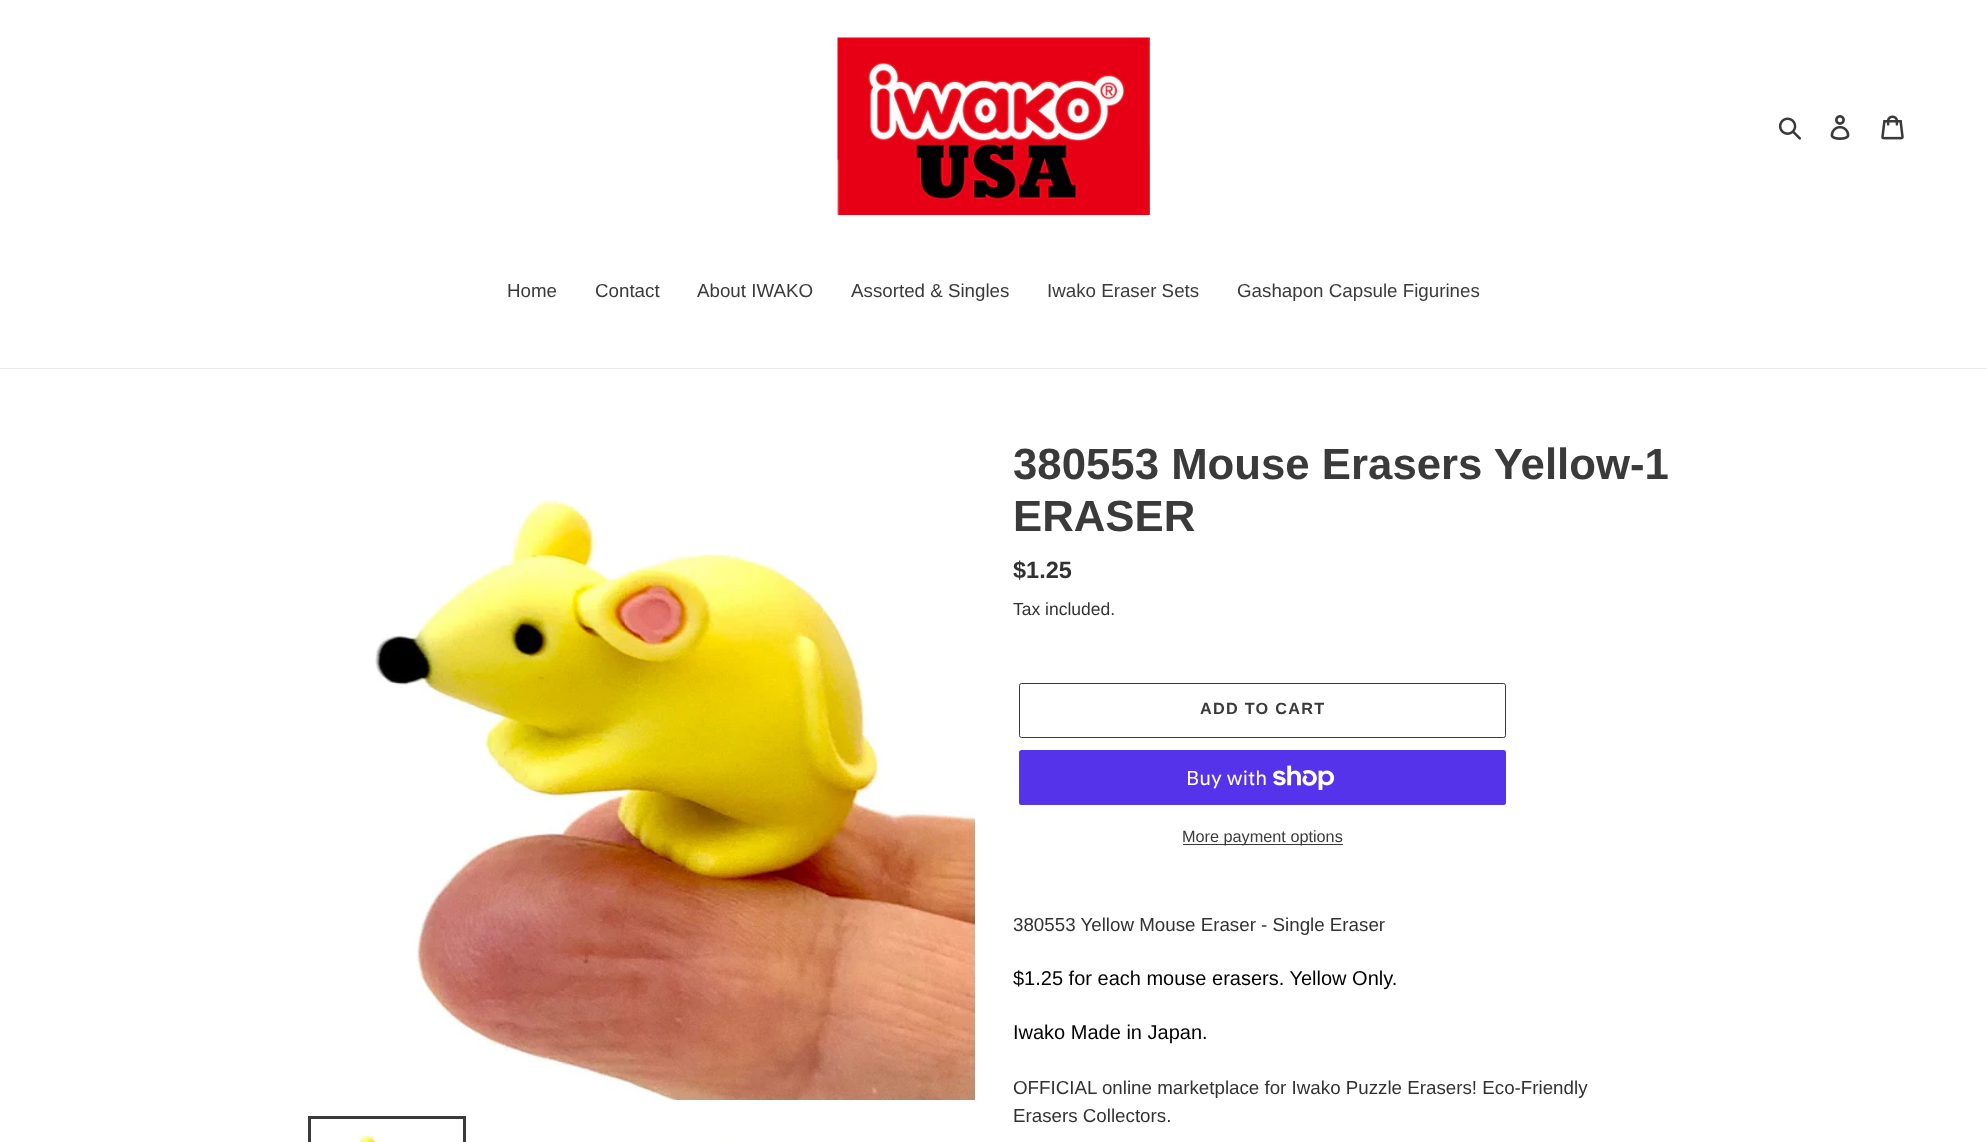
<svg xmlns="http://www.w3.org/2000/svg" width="1987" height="1142">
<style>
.a{font:18.75px Liberation Sans;fill:#3a3a3a}
.b{font:bold 43.75px Liberation Sans;fill:#3a3a3a}
.c{font:bold 23.5px Liberation Sans;fill:#333232}
.d{font:17.5px Liberation Sans;fill:#333232}
.e{font:bold 16.25px Liberation Sans;letter-spacing:1.25px;fill:#3a3a3a}
.f{font:20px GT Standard;fill:#fff}
.g{font:16.25px Liberation Sans;fill:#3a3a3a}
.h{font:18.75px Liberation Sans;fill:#333232}
.i{font:20px Liberation Sans;fill:#000}
</style>
<rect width="100%" height="100%" fill="#fff"/>
<image href="1.png" x="837" y="37" width="313" height="178"/>
<image href="2.png" x="1778" y="117" width="23" height="23"/>
<image href="3.png" x="1830" y="115" width="20" height="25"/>
<image href="4.png" x="1881" y="115" width="23" height="25"/>
<path fill="#ebebeb" d="M0 368h1987v1H0z"/>
<image href="5.png" x="375" y="500" width="600" height="600"/>
<path fill="none" stroke="#3a3a3a" stroke-width="3" d="M309.5 1117.5h155v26H309.5z"/>
<image href="6.png" x="358" y="1134" width="18" height="8"/>
<image href="7.png" x="726" y="1141" width="7" height="1"/>
<rect fill="none" stroke="#3a3a3a" x="1019.5" y="683.5" width="486" height="54" rx="2"/>
<rect fill="#5433eb" x="1019" y="750" width="487" height="55" rx="2.5"/>
<image href="8.png" x="1273" y="765" width="62" height="25"/>
<path fill="#3a3a3a" d="M1183 844h160v1H1183z"/>
<text class="a" x="507" y="297">Home</text>
<text class="a" x="595" y="297">Contact</text>
<text class="a" x="697" y="297">About IWAKO</text>
<text class="a" x="851" y="297">Assorted &amp; Singles</text>
<text class="a" x="1047" y="297">Iwako Eraser Sets</text>
<text class="a" x="1237" y="297">Gashapon Capsule Figurines</text>
<text class="b" x="1013" y="479">380553 Mouse Erasers Yellow-1</text>
<text class="b" x="1013" y="531">ERASER</text>
<text class="c" x="1013" y="578">$1.25</text>
<text class="d" x="1013" y="615">Tax included.</text>
<text class="e" x="1200" y="714">ADD TO CART</text>
<text class="f" x="1186" y="785">Buy with</text>
<text class="g" x="1182" y="842">More payment options</text>
<text class="h" x="1013" y="931">380553 Yellow Mouse Eraser - Single Eraser</text>
<text class="i" x="1013" y="985">$1.25 for each mouse erasers. Yellow Only.</text>
<text class="i" x="1013" y="1039">Iwako Made in Japan.</text>
<text class="h" x="1013" y="1094">OFFICIAL online marketplace for Iwako Puzzle Erasers! Eco-Friendly</text>
<text class="h" x="1013" y="1122">Erasers Collectors.</text>
</svg>
